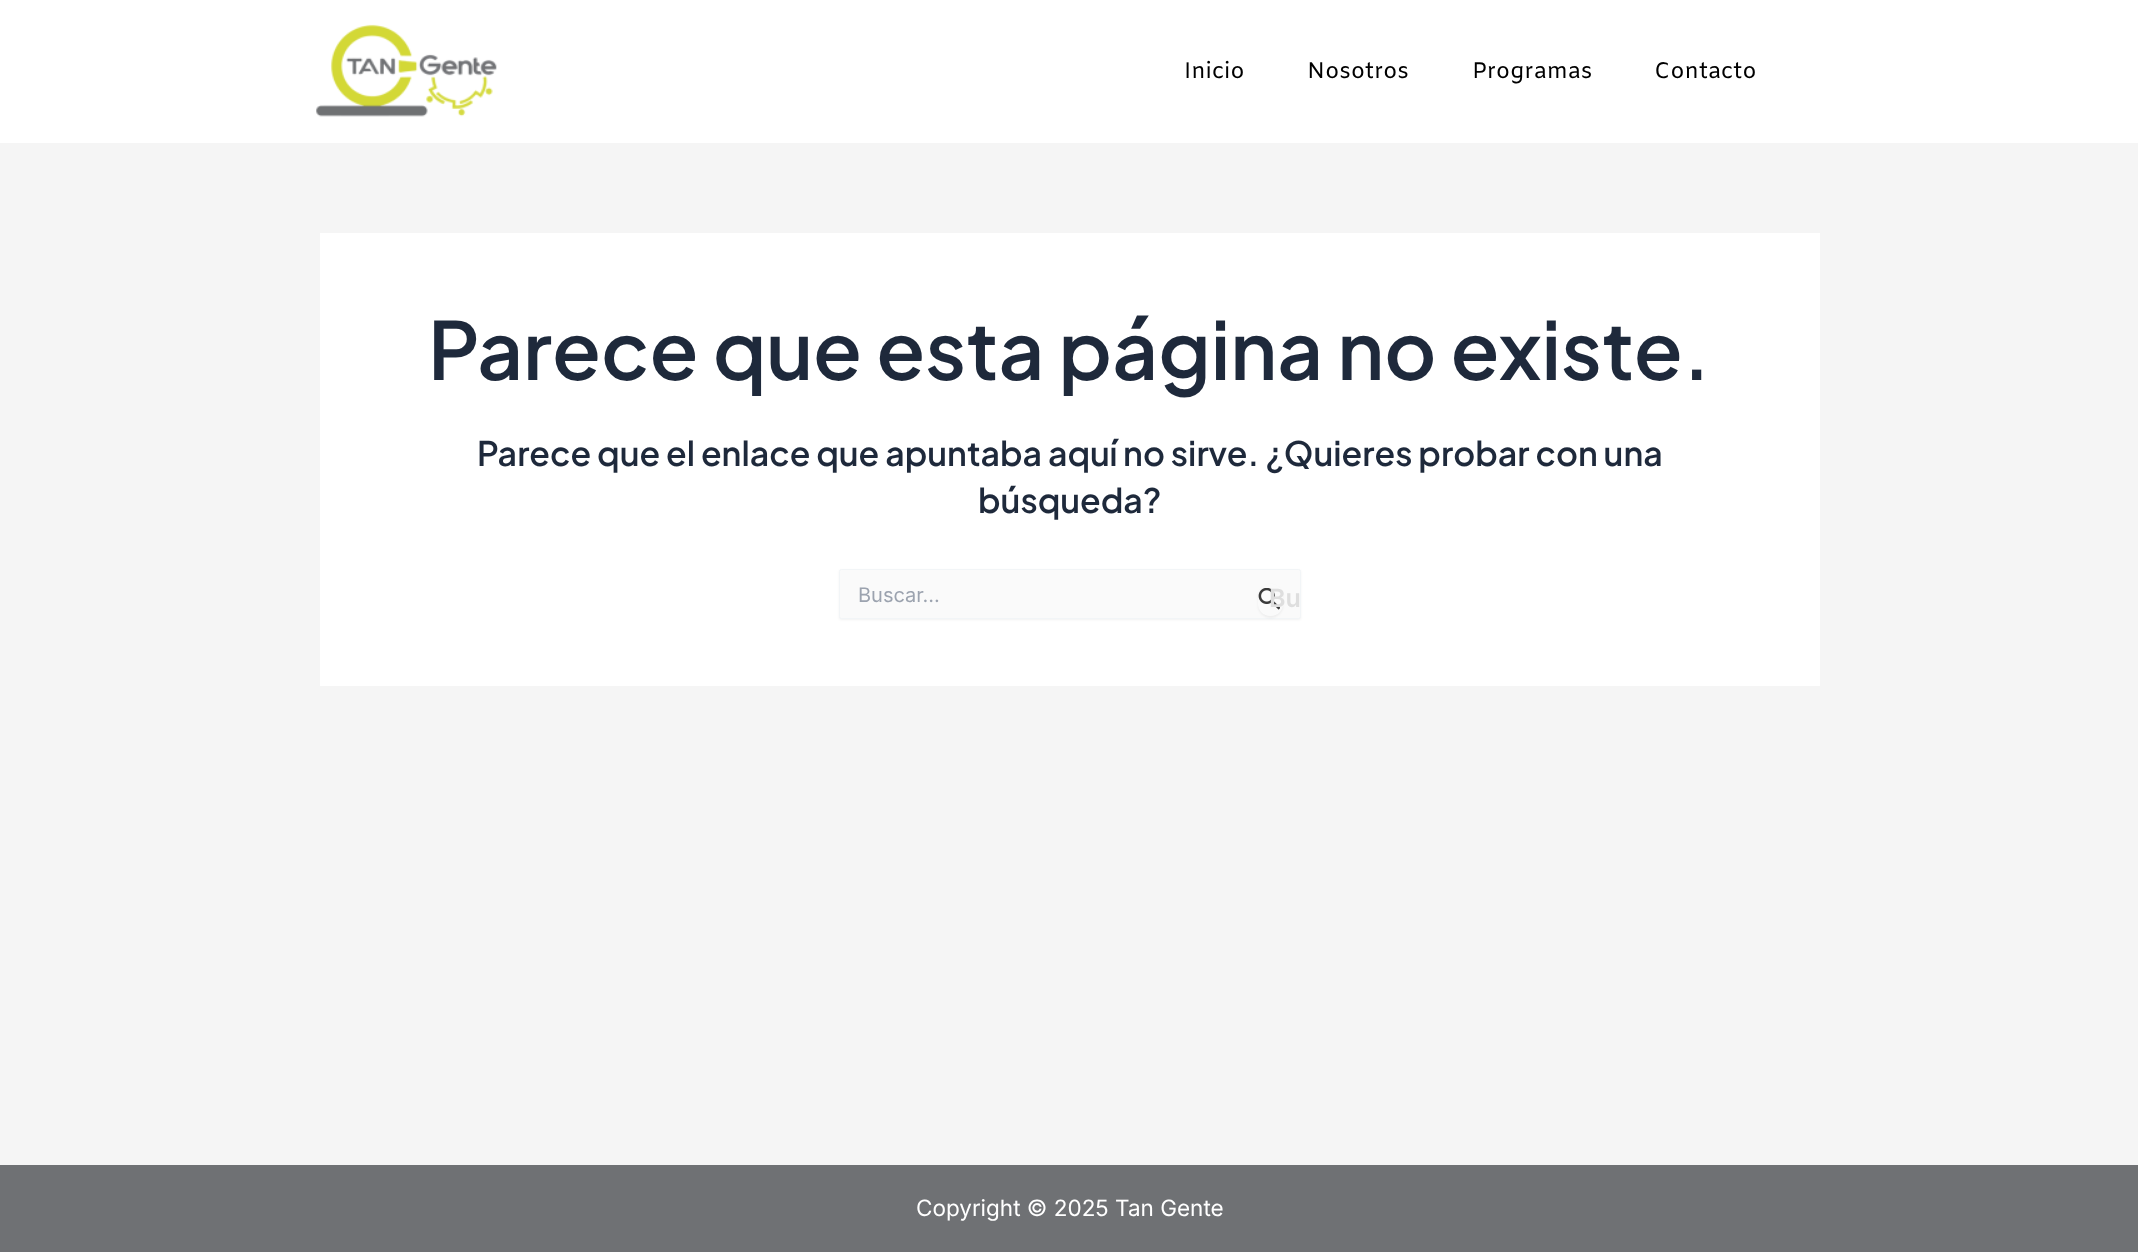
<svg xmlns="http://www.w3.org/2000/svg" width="2138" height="1252">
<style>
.a{font:22.5px Amiko;fill:#000}
.b{font:600 80px Plus Jakarta Sans;fill:#1e293b}
.c{font:600 33.75px Plus Jakarta Sans;fill:#1e293b}
.d{font:20px Inter;fill:#9ca3af}
.e{font:600 25px Inter;fill:#dedede}
.f{font:22.5px Inter;fill:#fff}
</style>
<defs>
<clipPath id="clip1"><path d="M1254 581h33v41h-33zm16.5 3c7 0 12.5 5.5 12.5 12.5v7c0 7-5.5 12.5-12.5 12.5c-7 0-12.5-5.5-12.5-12.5v-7c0-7 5.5-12.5 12.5-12.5z" clip-rule="evenodd"/></clipPath>
</defs>
<rect width="100%" height="100%" fill="#f5f5f5"/>
<path fill="#fff" d="M0 0h2138v143H0z"/>
<image href="1.png" x="316" y="24" width="181" height="93"/>
<path fill="#fff" d="M320 233h1500v453H320z"/>
<rect fill="#0000000d" filter="blur(1px)" x="839" y="570" width="462" height="50" rx="2.5"/>
<rect fill="#fafafa" stroke="#f2f5f7" x="839.5" y="569.5" width="461" height="49" rx="2"/>
<g clip-path="url(#clip1)">
<rect fill="#0000000d" filter="blur(1px)" x="1258" y="585" width="25" height="33" rx="12.5"/>
</g>
<image href="2.png" x="1258" y="588" width="22" height="22"/>
<path fill="#6f7174" d="M0 1165h2138v87H0z"/>
<text class="a" x="1184" y="78">Inicio</text>
<text class="a" x="1307" y="78">Nosotros</text>
<text class="a" x="1472" y="78">Programas</text>
<text class="a" x="1654" y="78">Contacto</text>
<text class="b" x="428" y="380">Parece que esta página no existe.</text>
<text class="c" x="477" y="466">Parece que el enlace que apuntaba aquí no sirve. ¿Quieres probar con una</text>
<text class="c" x="978" y="513">búsqueda?</text>
<text class="d" x="858" y="602">Buscar...</text>
<text class="e" x="1269" y="607">Bu</text>
<text class="f" x="916" y="1216">Copyright © 2025 Tan Gente</text>
</svg>
